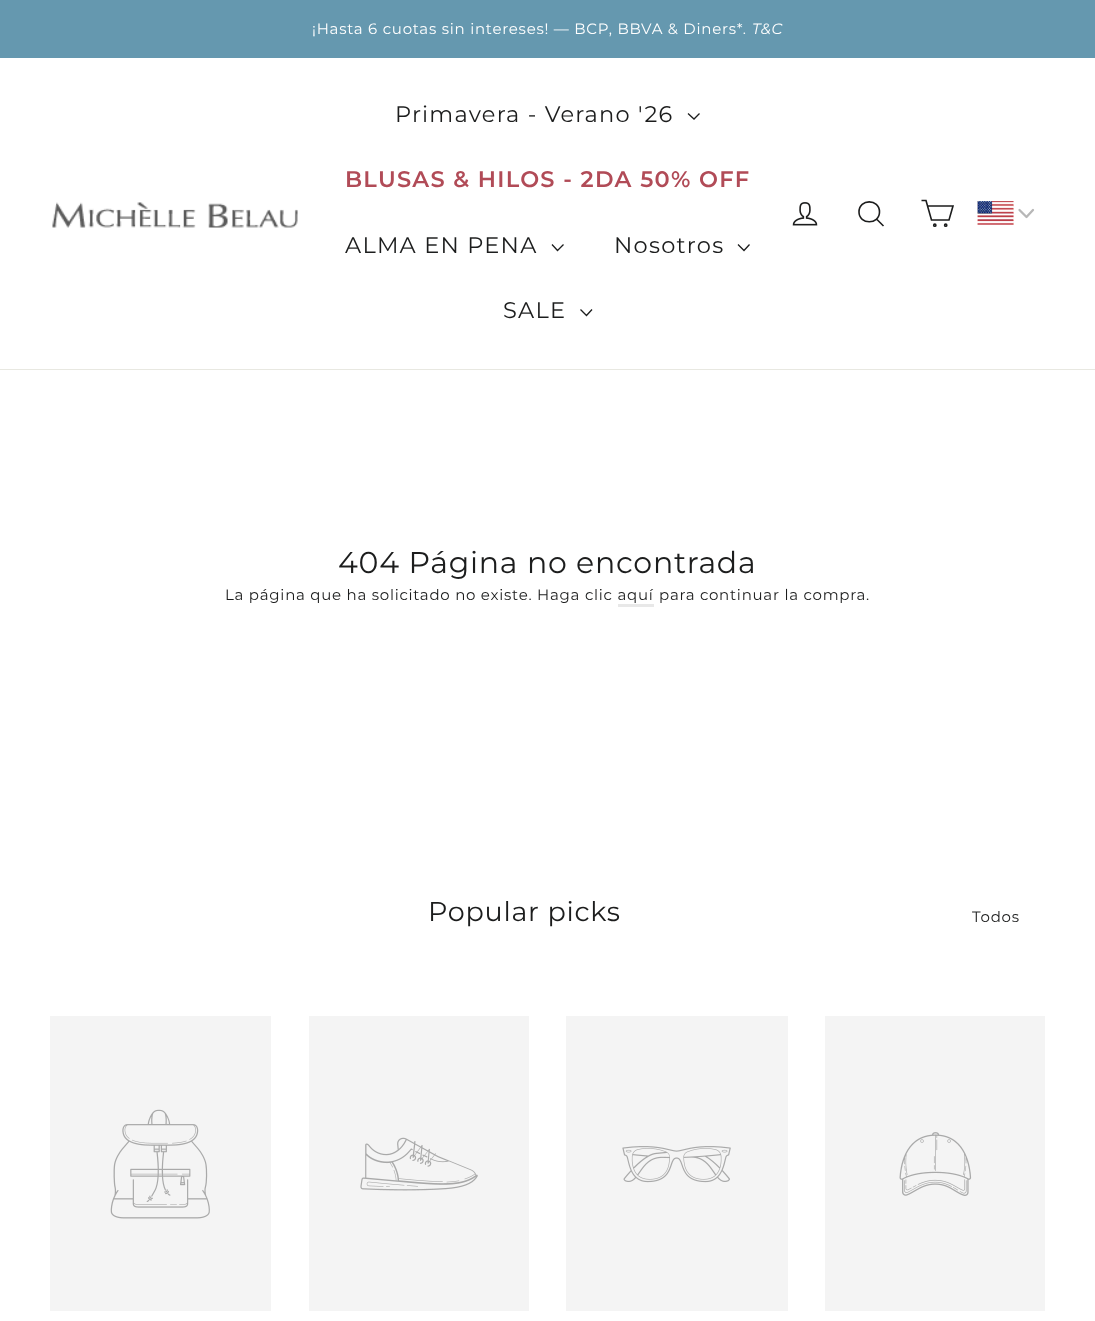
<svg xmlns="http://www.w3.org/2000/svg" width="1095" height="1321">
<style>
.a{font:15px Montserrat;letter-spacing:0.75px;fill:#fff}
.b{font:italic 15px Montserrat;letter-spacing:0.75px;fill:#fff}
.c{font:22.5px Montserrat;letter-spacing:1.25px;fill:#1c1d1d}
.d{font:600 22.5px Montserrat;letter-spacing:1.25px;fill:#b14b57}
.e{font:30px Montserrat;letter-spacing:0.75px;fill:#1c1d1d}
.f{font:15px Montserrat;letter-spacing:0.75px;fill:#1c1d1d}
.g{font:27px Montserrat;letter-spacing:0.75px;fill:#1c1d1d}
</style>
<rect width="100%" height="100%" fill="#fff"/>
<path fill="#6598af" d="M0 0h1095v58H0z"/>
<path fill="#e8e8e1" d="M0 369h1095v1H0z"/>
<image href="1.png" x="52" y="202" width="246" height="26"/>
<path fill="none" stroke="#1c1d1d" stroke-width="1.3" d="M688 113.5l6 5.5l5.5-5.5"/>
<path fill="none" stroke="#1c1d1d" stroke-width="1.3" d="M552 244.5l5.5 6l6-6"/>
<path fill="none" stroke="#1c1d1d" stroke-width="1.3" d="M738 244.5l6 6l5.5-6"/>
<path fill="none" stroke="#1c1d1d" stroke-width="1.3" d="M580.5 309.5l6 6l5.5-6"/>
<image href="2.png" x="792" y="202" width="26" height="24"/>
<path fill="none" stroke="#1c1d1d" stroke-width="1.6" d="M879.5 212c0 13-20.5 13-20.5 0c0-13.5 20.5-13.5 20.5 0zm4 14l-7-7"/>
<path fill="none" stroke="#1c1d1d" stroke-width="1.6" d="M927.5 206h25.5l-4 14h-17.5l-5.5-19.5h-4.5"/>
<circle fill="none" stroke="#1c1d1d" stroke-width="1.6" cx="934.8" cy="225.2" r="1.1"/>
<circle fill="none" stroke="#1c1d1d" stroke-width="1.6" cx="945.7" cy="225.2" r="1.1"/>
<image href="3.png" x="977" y="201" width="37" height="24"/>
<path fill="none" stroke="#b7b7b7" stroke-width="2.3" stroke-linecap="round" stroke-linejoin="round" d="M1019.5 210l7 7l6.5-7"/>
<path fill="#e8e8e8" d="M618 604h36v3H618z"/>
<path fill="#f4f4f4" d="M50 1016h221v295H50z"/>
<image href="4.png" x="110" y="1109" width="100" height="110"/>
<path fill="#f4f4f4" d="M309 1016h220v295H309z"/>
<image href="5.png" x="360" y="1137" width="118" height="54"/>
<path fill="#f4f4f4" d="M566 1016h222v295H566z"/>
<image href="6.png" x="622" y="1146" width="109" height="37"/>
<path fill="#f4f4f4" d="M825 1016h220v295H825z"/>
<image href="7.png" x="899" y="1132" width="73" height="64"/>
<text class="a" x="312" y="34">¡Hasta 6 cuotas sin intereses! — BCP, BBVA &amp; Diners*.</text>
<text class="b" x="752" y="34">T&amp;C</text>
<text class="c" x="395" y="122">Primavera - Verano '26</text>
<text class="d" x="345" y="187">BLUSAS &amp; HILOS - 2DA 50% OFF</text>
<text class="c" x="345" y="253">ALMA EN PENA</text>
<text class="c" x="614" y="253">Nosotros</text>
<text class="c" x="503" y="318">SALE</text>
<text class="e" x="338" y="573">404 Página no encontrada</text>
<text class="f" x="225" y="600">La página que ha solicitado no existe. Haga clic aquí</text>
<text class="f" x="659" y="600">para continuar la compra.</text>
<text class="g" x="428" y="921">Popular picks</text>
<text class="f" x="972" y="922">Todos</text>
</svg>
